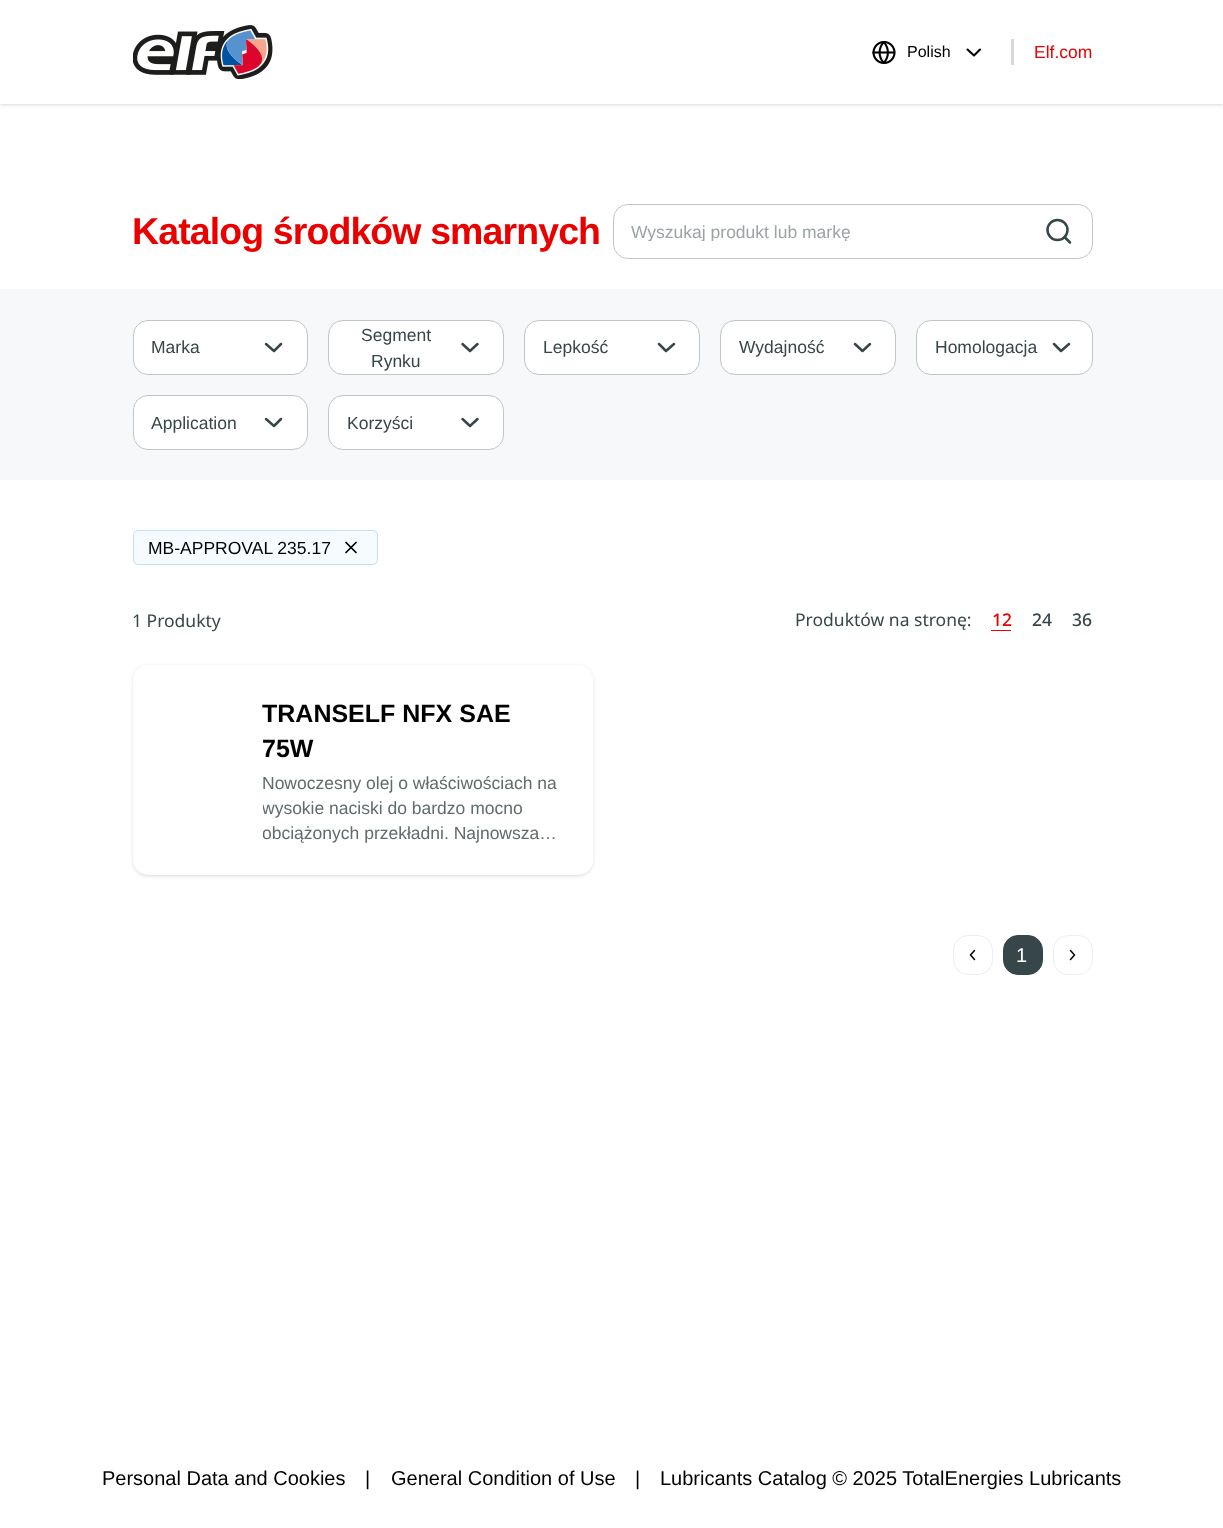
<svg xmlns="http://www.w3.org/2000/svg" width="1223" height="1528">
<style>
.a{font:16px Liberation Sans;fill:#000}
.b{font:17.5px Liberation Sans;fill:#eb0000}
.c{font:bold 37.5px Liberation Sans;letter-spacing:-0.9px;fill:#eb0000}
.d{font:17.5px Liberation Sans;fill:#9ba3a4}
.e{font:17.5px Liberation Sans;fill:#374649}
.f{font:17.5px Liberation Sans;fill:#000}
.g{font:17.5px Noto Sans;fill:#374649}
.h{font:500 17.5px Noto Sans;fill:#eb0000}
.i{font:500 17.5px Noto Sans;fill:#374649}
.j{font:bold 25px Liberation Sans;fill:#000}
.k{font:17.5px Liberation Sans;fill:#5f6b6d}
.l{font:20px Liberation Sans;fill:#fff}
.m{font:20px Liberation Sans;fill:#000}
</style>
<defs>
<clipPath id="clip1"><path d="M631 221h408v20H631z"/></clipPath>
<clipPath id="clip2"><path d="M263 770h300v75H263z"/></clipPath>
</defs>
<rect width="100%" height="100%" fill="#fff"/>
<path fill="#0000001a" filter="blur(1px)" d="M1 3h1222v101H1z"/>
<path fill="#0000001a" filter="blur(2px)" d="M0 1h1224v104H0z"/>
<path fill="#fff" d="M0 0h1223v104H0z"/>
<image href="1.png" x="133" y="25" width="140" height="54"/>
<image href="2.png" x="872" y="41" width="24" height="23"/>
<path fill="none" stroke="#000" stroke-width="2.1" stroke-linecap="round" stroke-linejoin="round" d="M967.5 49.5l6.5 6l6-6"/>
<path fill="#d7dadb" d="M1011 39h3v26H1011z"/>
<rect fill="none" stroke="#bfc6ca" x="613.5" y="204.5" width="479" height="54" rx="14.5"/>
<path fill="none" stroke="#374649" stroke-width="2.5" stroke-linecap="round" stroke-linejoin="round" d="M1070 242.5l-5.5-5.5"/>
<circle fill="none" stroke="#374649" stroke-width="2.5" cx="1057.5" cy="230" r="10"/>
<path fill="#f6f8f9" d="M0 289h1223v191H0z"/>
<rect fill="#fff" stroke="#bfc6ca" x="133.5" y="320.5" width="174" height="54" rx="14.5"/>
<path fill="none" stroke="#374649" stroke-width="2.5" stroke-linecap="round" stroke-linejoin="round" d="M266 344l8 7l7-7"/>
<rect fill="#fff" stroke="#bfc6ca" x="328.5" y="320.5" width="175" height="54" rx="14.5"/>
<path fill="none" stroke="#374649" stroke-width="2.5" stroke-linecap="round" stroke-linejoin="round" d="M462.5 344l7.5 7l7.5-7"/>
<rect fill="#fff" stroke="#bfc6ca" x="524.5" y="320.5" width="175" height="54" rx="14.5"/>
<path fill="none" stroke="#374649" stroke-width="2.5" stroke-linecap="round" stroke-linejoin="round" d="M659 344l7 7l8-7"/>
<rect fill="#fff" stroke="#bfc6ca" x="720.5" y="320.5" width="175" height="54" rx="14.5"/>
<path fill="none" stroke="#374649" stroke-width="2.5" stroke-linecap="round" stroke-linejoin="round" d="M855 344l7.5 7l7.5-7"/>
<rect fill="#fff" stroke="#bfc6ca" x="916.5" y="320.5" width="176" height="54" rx="14.5"/>
<path fill="none" stroke="#374649" stroke-width="2.5" stroke-linecap="round" stroke-linejoin="round" d="M1054 344l7 7l8-7"/>
<rect fill="#fff" stroke="#bfc6ca" x="133.5" y="395.5" width="174" height="54" rx="14.5"/>
<path fill="none" stroke="#374649" stroke-width="2.5" stroke-linecap="round" stroke-linejoin="round" d="M266 419l8 7l7-7"/>
<rect fill="#fff" stroke="#bfc6ca" x="328.5" y="395.5" width="175" height="54" rx="14.5"/>
<path fill="none" stroke="#374649" stroke-width="2.5" stroke-linecap="round" stroke-linejoin="round" d="M462.5 419l7.5 7l7.5-7"/>
<rect fill="#f5fbff" stroke="#c4e1f4" x="133.5" y="530.5" width="244" height="34" rx="4.5"/>
<path fill="none" stroke="#000" stroke-width="1.7" stroke-linecap="round" stroke-linejoin="round" d="M356 542.5l-10 10m0-10l10 10"/>
<path fill="#eb0000" d="M991 630h20v1H991z"/>
<rect fill="#0000001a" filter="blur(1px)" x="134" y="668" width="457" height="207" rx="14"/>
<rect fill="#0000001a" filter="blur(2px)" x="133" y="666" width="460" height="210" rx="15"/>
<rect fill="#fff" x="133" y="665" width="460" height="210" rx="15"/>
<rect fill="none" stroke="#e9eff1" x="953.5" y="935.5" width="39" height="39" rx="14.5"/>
<path fill="none" stroke="#000" stroke-width="1.5" stroke-linecap="round" stroke-linejoin="round" d="M974.5 959.5l-4-4.5l4-4.5"/>
<rect fill="#374649" stroke="#374649" x="1003.5" y="935.5" width="39" height="39" rx="14.5"/>
<rect fill="none" stroke="#e9eff1" x="1053.5" y="935.5" width="39" height="39" rx="14.5"/>
<path fill="none" stroke="#000" stroke-width="1.5" stroke-linecap="round" stroke-linejoin="round" d="M1070.5 959.5l4-4.5l-4-4.5"/>
<text class="a" x="907" y="57">Polish</text>
<text class="b" x="1034" y="58">Elf.com</text>
<text class="c" x="132" y="244">Katalog środków smarnych</text>
<g clip-path="url(#clip1)">
<text class="d" x="631" y="238">Wyszukaj produkt lub markę</text>
</g>
<text class="e" x="151" y="353">Marka</text>
<text class="e" x="361" y="341">Segment</text>
<text class="e" x="371" y="367">Rynku</text>
<text class="e" x="543" y="353">Lepkość</text>
<text class="e" x="739" y="353">Wydajność</text>
<text class="e" x="935" y="353">Homologacja</text>
<text class="e" x="151" y="429">Application</text>
<text class="e" x="347" y="429">Korzyści</text>
<text class="f" x="148" y="554">MB-APPROVAL 235.17</text>
<text class="g" x="132" y="627">1 Produkty</text>
<text class="g" x="795" y="626">Produktów na stronę:</text>
<text class="h" x="992" y="626">12</text>
<text class="i" x="1032" y="626">24</text>
<text class="i" x="1072" y="626">36</text>
<text class="j" x="262" y="722">TRANSELF NFX SAE</text>
<text class="j" x="262" y="757">75W</text>
<text class="k" x="262" y="789">Nowoczesny olej o właściwościach na</text>
<g clip-path="url(#clip2)">
<text class="k" x="262" y="814">wysokie naciski do bardzo mocno</text>
<text class="k" x="262" y="839">obciążonych przekładni. Najnowsza…</text>
</g>
<text class="l" x="1016" y="962">1</text>
<text class="m" x="102" y="1485">Personal Data and Cookies</text>
<text class="m" x="365" y="1485">|</text>
<text class="m" x="391" y="1485">General Condition of Use</text>
<text class="m" x="635" y="1485">|</text>
<text class="m" x="660" y="1485">Lubricants Catalog © 2025 TotalEnergies Lubricants</text>
</svg>
